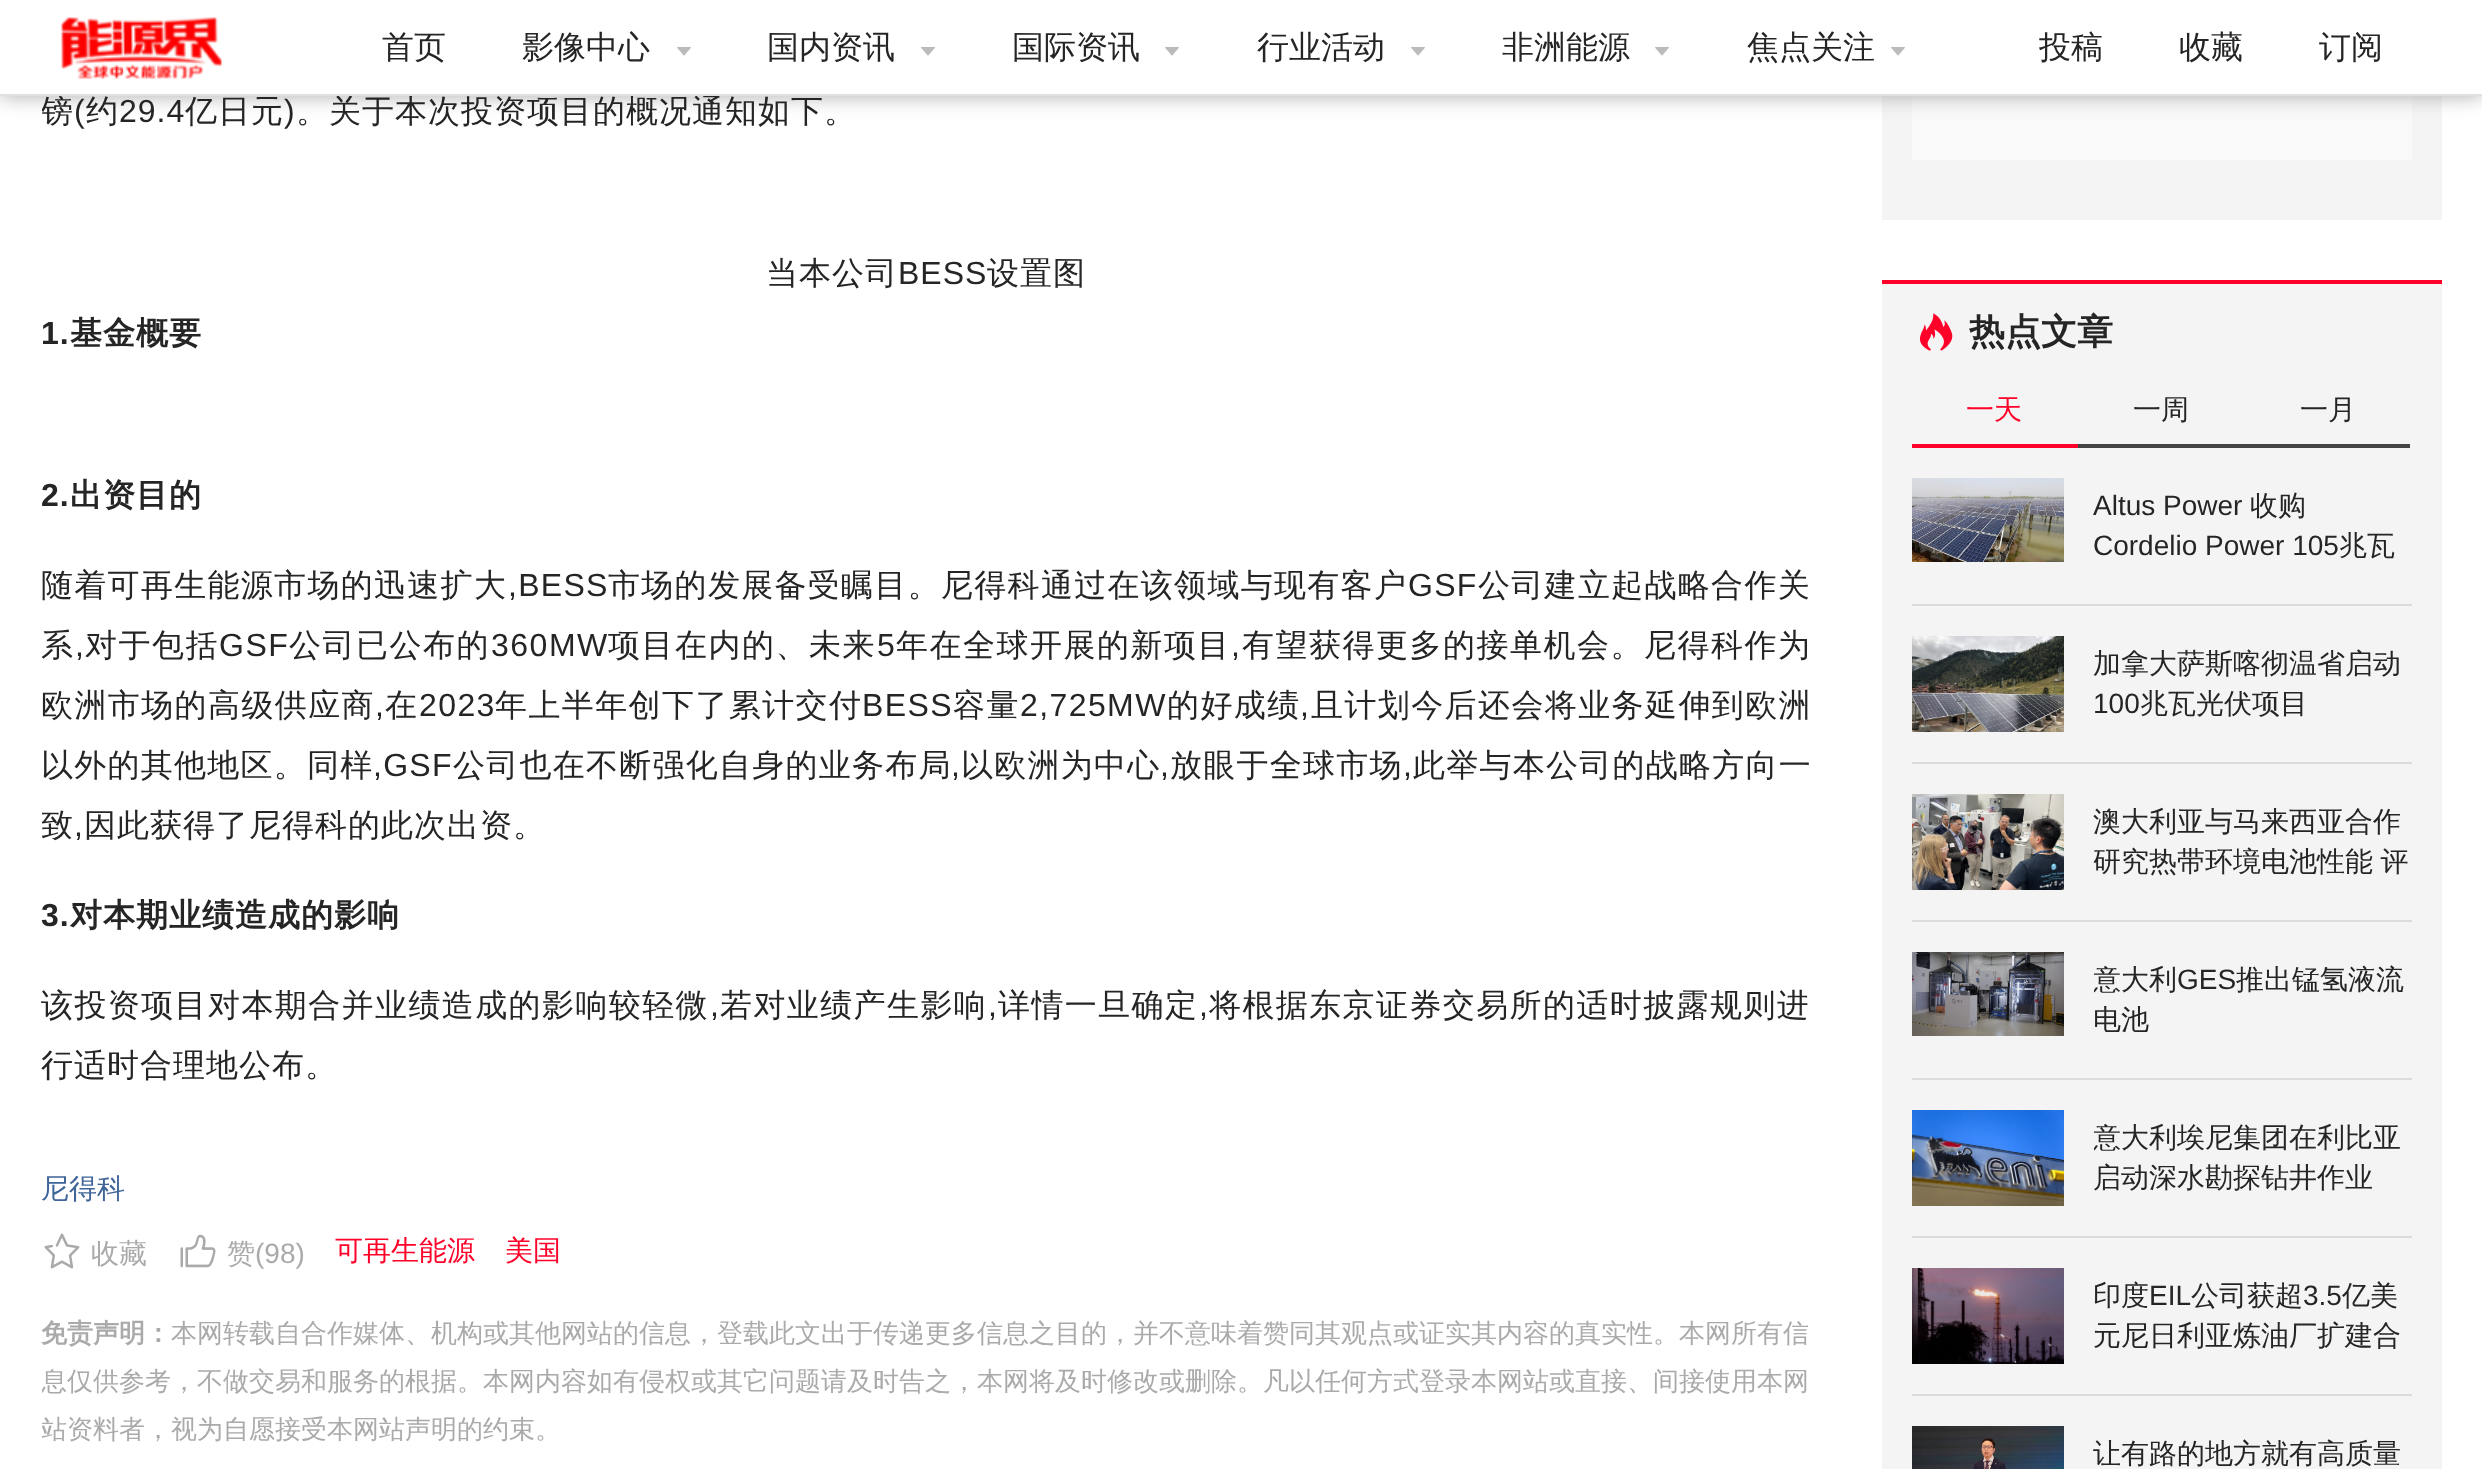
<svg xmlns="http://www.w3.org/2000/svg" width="2482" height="1469">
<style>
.a{font:500 32px WenQuanYi Zen Hei;fill:#262525}
.b{font:500 32px WenQuanYi Zen Hei;letter-spacing:1px;fill:#262525}
.c{font:32px Liberation Sans;letter-spacing:1px;fill:#262525}
.d{font:bold 32px Liberation Sans;letter-spacing:1px;fill:#262525}
.e{font:bold 32px WenQuanYi Zen Hei;letter-spacing:1px;fill:#262525}
.f{font:500 32px WenQuanYi Zen Hei;letter-spacing:1.3px;fill:#262525}
.g{font:32px Liberation Sans;letter-spacing:1.3px;fill:#262525}
.h{font:500 32px WenQuanYi Zen Hei;letter-spacing:1.5px;fill:#262525}
.i{font:32px Liberation Sans;letter-spacing:1.5px;fill:#262525}
.j{font:500 32px WenQuanYi Zen Hei;letter-spacing:1.4px;fill:#262525}
.k{font:32px Liberation Sans;letter-spacing:1.4px;fill:#262525}
.l{font:500 32px WenQuanYi Zen Hei;letter-spacing:1.25px;fill:#262525}
.m{font:32px Liberation Sans;letter-spacing:1.25px;fill:#262525}
.n{font:500 28px WenQuanYi Zen Hei;fill:#406599}
.o{font:500 28px WenQuanYi Zen Hei;fill:#aaa}
.p{font:28px Liberation Sans;fill:#aaa}
.q{font:500 28px WenQuanYi Zen Hei;fill:#ff0028}
.r{font:bold 26px WenQuanYi Zen Hei;fill:#aaa}
.s{font:500 26px WenQuanYi Zen Hei;fill:#aaa}
.t{font:bold 36px WenQuanYi Zen Hei;fill:#262525}
.u{font:500 28px WenQuanYi Zen Hei;fill:#262525}
.v{font:28px Liberation Sans;fill:#262525}
</style>
<defs>
<clipPath id="clip1"><path d="M42 0h1770v1166H42z"/></clipPath>
<clipPath id="clip2"><path d="M42 0h1770v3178H42z"/></clipPath>
<clipPath id="clip3"><path d="M2094 958h318v80H2094z"/></clipPath>
<clipPath id="clip4"><path d="M2094 1116h318v80H2094z"/></clipPath>
</defs>
<rect width="100%" height="100%" fill="#fff"/>
<path fill="#f4f4f4" d="M1882 96h560v124H1882z"/>
<path fill="#f9f9f9" d="M1912 96h500v64H1912z"/>
<path fill="#aaa" filter="blur(10px)" d="M0 0h2482v96H0z"/>
<path fill="#fff" d="M0 0h2482v94H0z"/>
<image href="1.png" x="61" y="17" width="161" height="62"/>
<image href="2.png" x="677" y="47" width="14" height="9"/>
<image href="2.png" x="921" y="47" width="14" height="9"/>
<image href="2.png" x="1165" y="47" width="14" height="9"/>
<image href="2.png" x="1411" y="47" width="14" height="9"/>
<image href="2.png" x="1655" y="47" width="14" height="9"/>
<image href="2.png" x="1891" y="47" width="14" height="9"/>
<image href="3.png" x="44" y="1233" width="36" height="36"/>
<image href="4.png" x="180" y="1234" width="36" height="34"/>
<path fill="#f4f4f4" d="M1882 284h560v1185H1882z"/>
<path fill="#ff0028" d="M1882 280h560v4H1882z"/>
<image href="5.png" x="1919" y="313" width="34" height="38"/>
<path fill="#ff0028" d="M1912 444h166v4H1912z"/>
<path fill="#444" d="M2078 444h332v4H2078z"/>
<path fill="#dcdcdc" d="M1912 604h500v2H1912z"/>
<image href="6.png" x="1912" y="478" width="152" height="84"/>
<path fill="#dcdcdc" d="M1912 762h500v2H1912z"/>
<image href="7.png" x="1912" y="636" width="152" height="96"/>
<path fill="#dcdcdc" d="M1912 920h500v2H1912z"/>
<image href="8.png" x="1912" y="794" width="152" height="96"/>
<path fill="#dcdcdc" d="M1912 1078h500v2H1912z"/>
<image href="9.png" x="1912" y="952" width="152" height="84"/>
<path fill="#dcdcdc" d="M1912 1236h500v2H1912z"/>
<image href="10.png" x="1912" y="1110" width="152" height="96"/>
<path fill="#dcdcdc" d="M1912 1394h500v2H1912z"/>
<image href="11.png" x="1912" y="1268" width="152" height="96"/>
<image href="12.png" x="1912" y="1426" width="152" height="43"/>
<text class="a" x="382" y="58">首页</text>
<text class="a" x="522" y="58">影像中心</text>
<text class="a" x="767" y="58">国内资讯</text>
<text class="a" x="1012" y="58">国际资讯</text>
<text class="a" x="1257" y="58">行业活动</text>
<text class="a" x="1502" y="58">非洲能源</text>
<text class="a" x="1747" y="58">焦点关注</text>
<text class="a" x="2039" y="58">投稿</text>
<text class="a" x="2179" y="58">收藏</text>
<text class="a" x="2319" y="58">订阅</text>
<g clip-path="url(#clip1)">
<text class="b" x="41" y="122">镑</text>
</g>
<text class="c" x="74" y="122">(</text>
<text class="b" x="86" y="122">约</text>
<text class="c" x="119" y="122">29.4</text>
<text class="b" x="185" y="122">亿日元</text>
<text class="c" x="284" y="122">)</text>
<text class="b" x="296" y="122">。关于本次投资项目的概况通知如下。</text>
<path fill="#e0e0e0" d="M0 94h2482v2H0z"/>
<text class="b" x="766" y="284">当本公司</text>
<text class="c" x="898" y="284">BESS</text>
<text class="b" x="987" y="284">设置图</text>
<text class="d" x="41" y="344">1.</text>
<text class="e" x="70" y="344">基金概要</text>
<text class="d" x="41" y="506">2.</text>
<text class="e" x="70" y="506">出资目的</text>
<text class="f" x="41" y="596">随着可再生能源市场的迅速扩大</text>
<text class="g" x="508" y="596">,BESS</text>
<text class="f" x="608" y="596">市场的发展备受瞩目。尼得科通过在该领域与现有客户</text>
<text class="g" x="1408" y="596">GSF</text>
<text class="f" x="1478" y="596">公司建立起战略合作关</text>
<text class="h" x="41" y="656">系</text>
<text class="i" x="75" y="656">,</text>
<text class="h" x="85" y="656">对于包括</text>
<text class="i" x="219" y="656">GSF</text>
<text class="h" x="289" y="656">公司已公布的</text>
<text class="i" x="491" y="656">360MW</text>
<text class="h" x="608" y="656">项目在内的、未来</text>
<text class="i" x="877" y="656">5</text>
<text class="h" x="896" y="656">年在全球开展的新项目</text>
<text class="i" x="1231" y="656">,</text>
<text class="h" x="1242" y="656">有望获得更多的接单机会。尼得科作为</text>
<text class="j" x="41" y="716">欧洲市场的高级供应商</text>
<text class="k" x="375" y="716">,</text>
<text class="j" x="385" y="716">在</text>
<text class="k" x="419" y="716">2023</text>
<text class="j" x="495" y="716">年上半年创下了累计交付</text>
<text class="k" x="862" y="716">BESS</text>
<text class="j" x="953" y="716">容量</text>
<text class="k" x="1020" y="716">2,725MW</text>
<text class="j" x="1167" y="716">的好成绩</text>
<text class="k" x="1300" y="716">,</text>
<text class="j" x="1311" y="716">且计划今后还会将业务延伸到欧洲</text>
<text class="l" x="41" y="776">以外的其他地区。同样</text>
<text class="m" x="373" y="776">,GSF</text>
<text class="l" x="453" y="776">公司也在不断强化自身的业务布局</text>
<text class="m" x="951" y="776">,</text>
<text class="l" x="961" y="776">以欧洲为中心</text>
<text class="m" x="1160" y="776">,</text>
<text class="l" x="1170" y="776">放眼于全球市场</text>
<text class="m" x="1403" y="776">,</text>
<text class="l" x="1413" y="776">此举与本公司的战略方向一</text>
<g clip-path="url(#clip1)">
<text class="b" x="41" y="836">致</text>
</g>
<text class="c" x="74" y="836">,</text>
<text class="b" x="84" y="836">因此获得了尼得科的此次出资。</text>
<text class="d" x="41" y="926">3.</text>
<text class="e" x="70" y="926">对本期业绩造成的影响</text>
<text class="j" x="41" y="1016">该投资项目对本期合并业绩造成的影响较轻微</text>
<text class="k" x="710" y="1016">,</text>
<text class="j" x="720" y="1016">若对业绩产生影响</text>
<text class="k" x="988" y="1016">,</text>
<text class="j" x="998" y="1016">详情一旦确定</text>
<text class="k" x="1199" y="1016">,</text>
<text class="j" x="1209" y="1016">将根据东京证券交易所的适时披露规则进</text>
<text class="b" x="41" y="1076">行适时合理地公布。</text>
<text class="n" x="41" y="1198">尼得科</text>
<text class="o" x="91" y="1263">收藏</text>
<text class="o" x="227" y="1263">赞</text>
<text class="p" x="255" y="1263">(98)</text>
<text class="q" x="335" y="1260">可再生能源</text>
<text class="q" x="505" y="1260">美国</text>
<text class="r" x="41" y="1342">免责声明：</text>
<text class="s" x="171" y="1342">本网转载自合作媒体、机构或其他网站的信息，登载此文出于传递更多信息之目的，并不意味着赞同其观点或证实其内容的真实性。本网所有信</text>
<g clip-path="url(#clip2)">
<text class="s" x="41" y="1390">息仅供参考，不做交易和服务的根据。本网内容如有侵权或其它问题请及时告之，本网将及时修改或删除。凡以任何方式登录本网站或直接、间接使用本网</text>
<text class="s" x="41" y="1438">站资料者，视为自愿接受本网站声明的约束。</text>
</g>
<text class="t" x="1969" y="344">热点文章</text>
<text class="q" x="1966" y="419">一天</text>
<text class="u" x="2133" y="419">一周</text>
<text class="u" x="2300" y="419">一月</text>
<text class="v" x="2093" y="515">Altus Power</text>
<text class="u" x="2250" y="515">收购</text>
<text class="v" x="2093" y="555">Cordelio Power 105</text>
<text class="u" x="2339" y="555">兆瓦</text>
<text class="u" x="2093" y="673">加拿大萨斯喀彻温省启动</text>
<text class="v" x="2093" y="713">100</text>
<text class="u" x="2140" y="713">兆瓦光伏项目</text>
<text class="u" x="2093" y="831">澳大利亚与马来西亚合作</text>
<text class="u" x="2093" y="871" word-spacing="-1">研究热带环境电池性能 评</text>
<g clip-path="url(#clip3)">
<text class="u" x="2093" y="989">意大利</text>
</g>
<text class="v" x="2177" y="989">GES</text>
<text class="u" x="2236" y="989">推出锰氢液流</text>
<text class="u" x="2093" y="1029">电池</text>
<g clip-path="url(#clip4)">
<text class="u" x="2093" y="1147">意大利埃尼集团在利比亚</text>
</g>
<text class="u" x="2093" y="1187">启动深水勘探钻井作业</text>
<text class="u" x="2093" y="1305">印度</text>
<text class="v" x="2149" y="1305">EIL</text>
<text class="u" x="2191" y="1305">公司获超</text>
<text class="v" x="2303" y="1305">3.5</text>
<text class="u" x="2342" y="1305">亿美</text>
<text class="u" x="2093" y="1345">元尼日利亚炼油厂扩建合</text>
<text class="u" x="2093" y="1463">让有路的地方就有高质量</text>
</svg>
